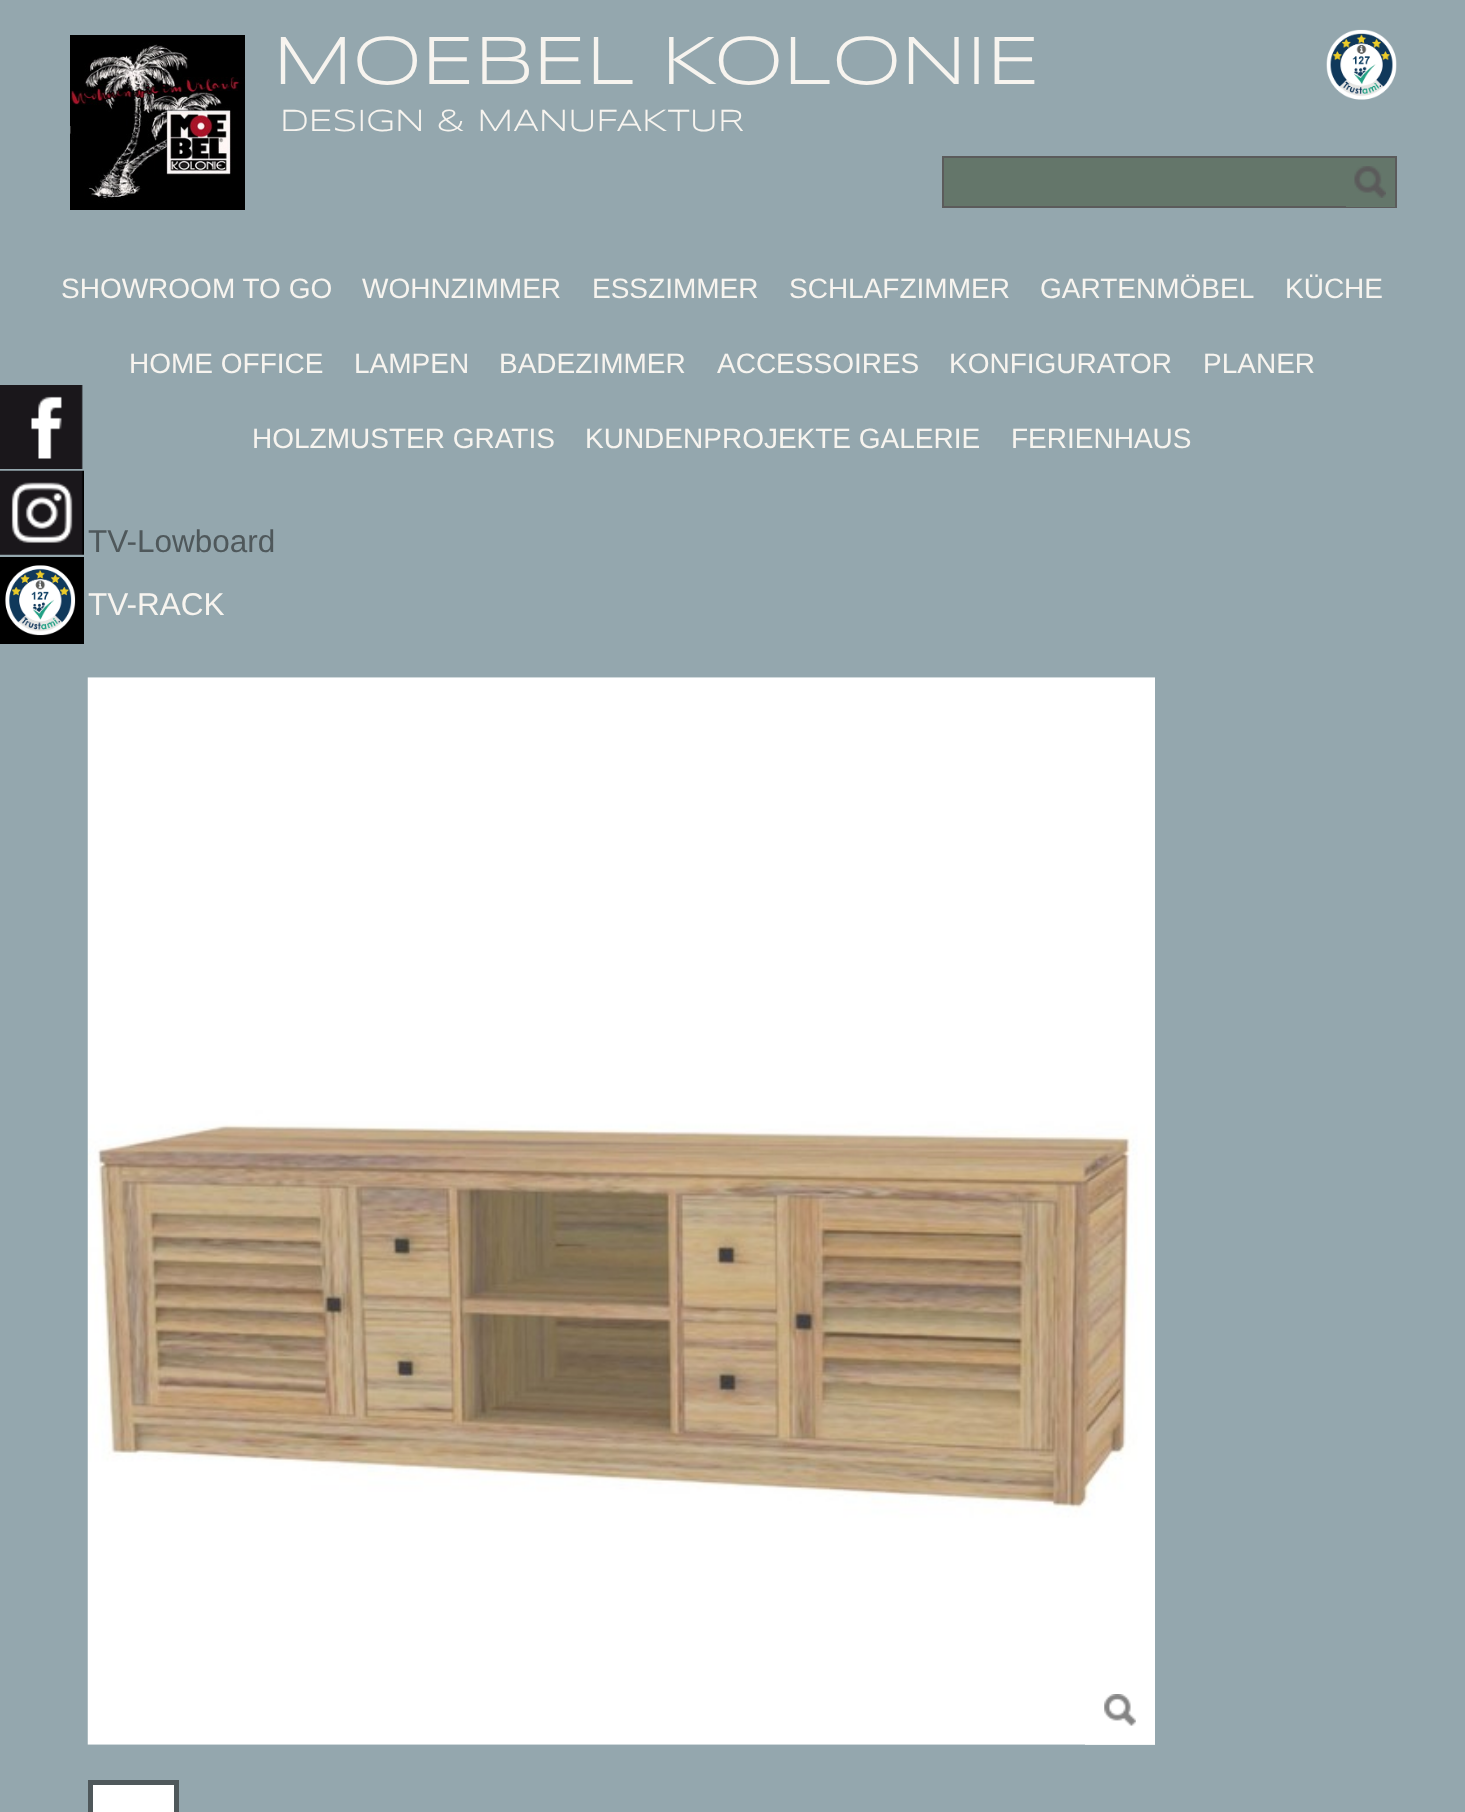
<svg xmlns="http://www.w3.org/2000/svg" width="1465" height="1812">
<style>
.a{font:70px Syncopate;fill:#f7f4ef}
.b{font:31.5px Syncopate;fill:#f7f4ef}
.c{font:28px Liberation Sans;fill:#f7f4ef}
.d{font:31.5px Liberation Sans;fill:#4f585b}
.e{font:31.5px Liberation Sans;fill:#f7f4ef}
</style>
<rect width="100%" height="100%" fill="#94a7ae"/>
<image href="1.png" x="70" y="35" width="175" height="175"/>
<image href="2.png" x="1326" y="29" width="71" height="71"/>
<path fill="#64766a" d="M944 158h402v48H944z"/>
<path fill="none" stroke="#5b5b5b" stroke-width="2" d="M943 157h453v50H943z"/>
<path fill="#64766a" d="M1346 158h49v49H1346z"/>
<image href="3.png" x="1354" y="166" width="32" height="32"/>
<image href="4.png" x="0" y="385" width="83" height="84"/>
<image href="5.png" x="0" y="470" width="84" height="85"/>
<path fill="#000" d="M0 557h84v87H0z"/>
<image href="6.png" x="5" y="565" width="71" height="71"/>
<image href="7.png" x="87" y="677" width="1068" height="1068"/>
<path fill="#ffffffbf" d="M1085 1744h70v1H1085z"/>
<image href="8.png" x="1104" y="1694" width="32" height="32"/>
<path fill="#fff" stroke="#4f585b" stroke-width="5" d="M90.5 1782.5h86v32H90.5z"/>
<text class="a" x="273" y="84">MOEBEL KOLONIE</text>
<text class="b" x="280" y="131">DESIGN &amp; MANUFAKTUR</text>
<text class="c" x="61" y="298">SHOWROOM TO GO</text>
<text class="c" x="362" y="298">WOHNZIMMER</text>
<text class="c" x="592" y="298">ESSZIMMER</text>
<text class="c" x="789" y="298">SCHLAFZIMMER</text>
<text class="c" x="1040" y="298">GARTENMÖBEL</text>
<text class="c" x="1285" y="298">KÜCHE</text>
<text class="c" x="129" y="373">HOME OFFICE</text>
<text class="c" x="354" y="373">LAMPEN</text>
<text class="c" x="499" y="373">BADEZIMMER</text>
<text class="c" x="717" y="373">ACCESSOIRES</text>
<text class="c" x="949" y="373">KONFIGURATOR</text>
<text class="c" x="1203" y="373">PLANER</text>
<text class="c" x="252" y="448">HOLZMUSTER GRATIS</text>
<text class="c" x="585" y="448">KUNDENPROJEKTE GALERIE</text>
<text class="c" x="1011" y="448">FERIENHAUS</text>
<text class="d" x="88" y="552">TV-Lowboard</text>
<text class="e" x="88" y="615">TV-RACK</text>
</svg>
